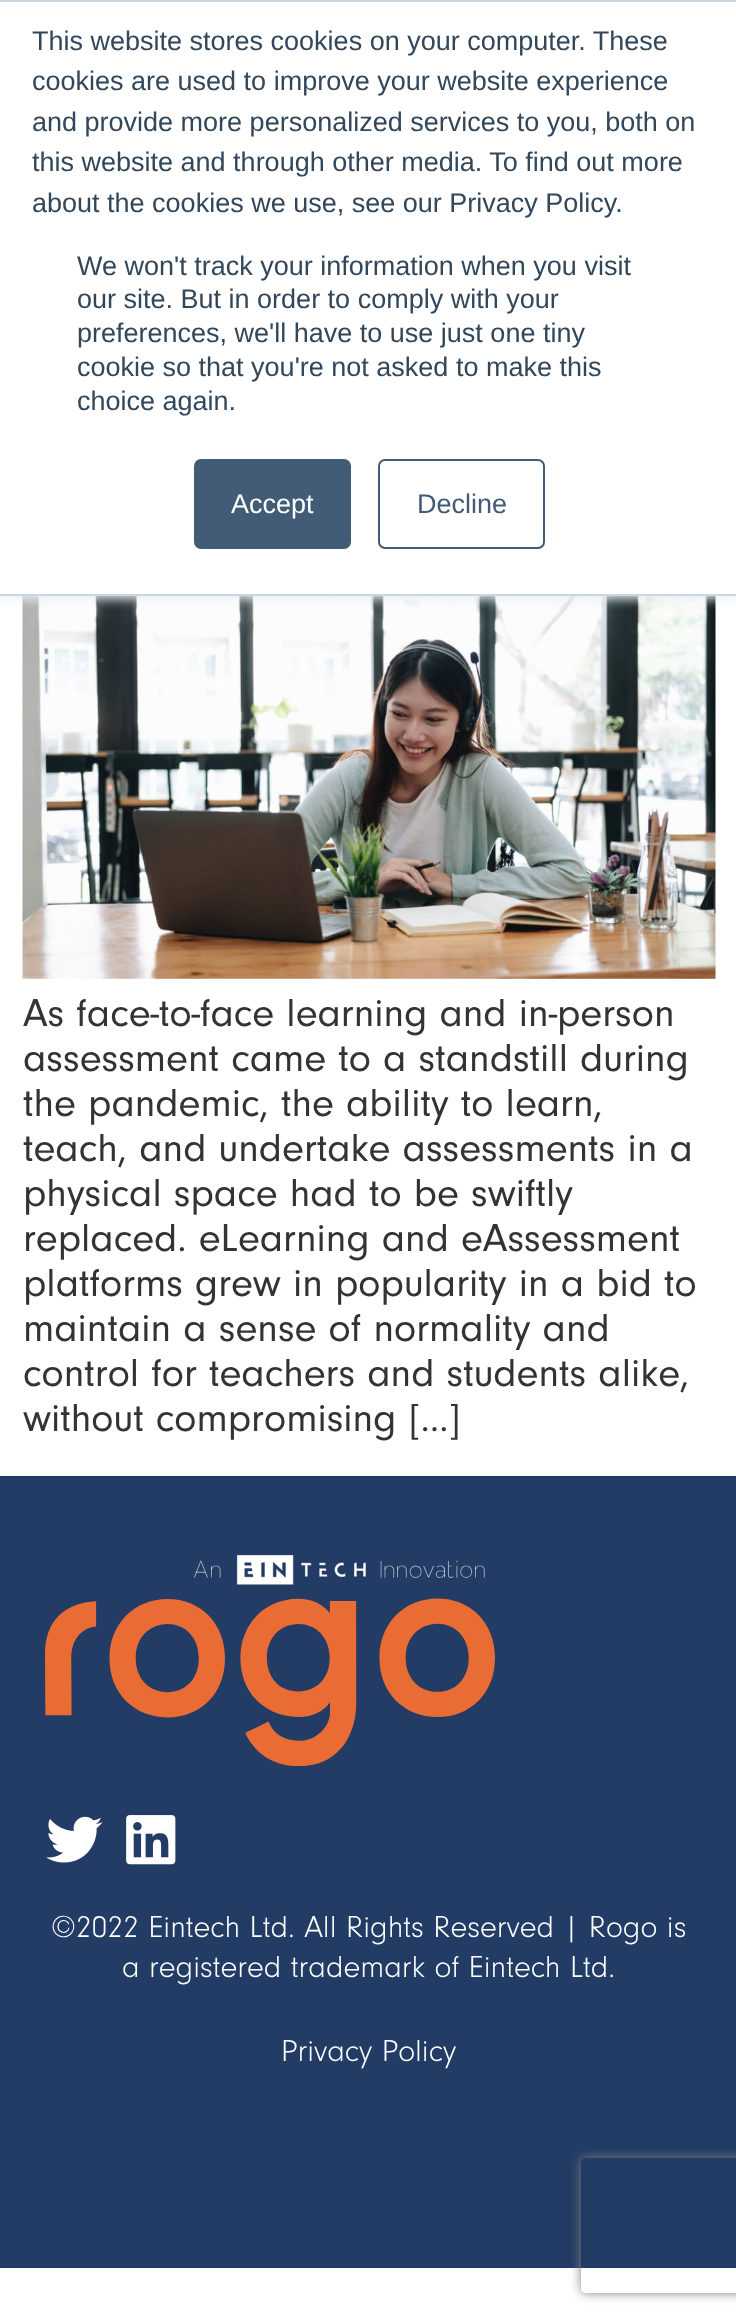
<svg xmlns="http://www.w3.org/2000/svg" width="736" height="2324">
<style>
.a{font:27px Liberation Sans;fill:#33475b}
.b{font:27px Liberation Sans;fill:#fff}
.c{font:27px Liberation Sans;fill:#425b76}
.d{font:40.5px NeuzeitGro;fill:#333}
.e{font:300 31.5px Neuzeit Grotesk;fill:#fff}
</style>
<defs>
<clipPath id="clip1"><path d="M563 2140h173v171h-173zm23 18h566c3 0 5 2 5 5v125c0 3-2 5-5 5h-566c-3 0-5-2-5-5v-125c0-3 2-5 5-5z" clip-rule="evenodd"/></clipPath>
</defs>
<rect width="100%" height="100%" fill="#fff"/>
<image href="1.png" x="22" y="596" width="694" height="383"/>
<path fill="#eaf0f6" filter="blur(5.5px)" d="M0 2h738v597H0z"/>
<path fill="#fff" d="M0 2h736v592H0z"/>
<path fill="#cbd6e2" d="M0 0h736v2H0z"/>
<path fill="#cbd6e2" d="M0 594h736v2H0z"/>
<rect fill="#425b76" stroke="#425b76" stroke-width="2" x="195" y="460" width="155" height="88" rx="6"/>
<rect fill="none" stroke="#425b76" stroke-width="2" x="379" y="460" width="165" height="88" rx="6"/>
<path fill="#233c65" d="M0 1476h736v792H0z"/>
<image href="2.png" x="45" y="1555" width="450" height="211"/>
<image href="3.png" x="46" y="1816" width="57" height="47"/>
<image href="4.png" x="126" y="1815" width="50" height="50"/>
<g clip-path="url(#clip1)">
<rect fill="#808080" filter="blur(5.5px)" x="581" y="2158" width="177" height="135" rx="5"/>
</g>
<text class="a" x="32" y="50">This website stores cookies on your computer. These</text>
<text class="a" x="32" y="90">cookies are used to improve your website experience</text>
<text class="a" x="32" y="131">and provide more personalized services to you, both on</text>
<text class="a" x="32" y="171">this website and through other media. To find out more</text>
<text class="a" x="32" y="212">about the cookies we use, see our Privacy Policy.</text>
<text class="a" x="77" y="275">We won't track your information when you visit</text>
<text class="a" x="77" y="308">our site. But in order to comply with your</text>
<text class="a" x="77" y="342">preferences, we'll have to use just one tiny</text>
<text class="a" x="77" y="376">cookie so that you're not asked to make this</text>
<text class="a" x="77" y="410">choice again.</text>
<text class="b" x="231" y="513">Accept</text>
<text class="c" x="417" y="513">Decline</text>
<text class="d" x="23" y="1026">As face-to-face learning and in-person</text>
<text class="d" x="23" y="1071">assessment came to a standstill during</text>
<text class="d" x="23" y="1116">the pandemic, the ability to learn,</text>
<text class="d" x="23" y="1161">teach, and undertake assessments in a</text>
<text class="d" x="23" y="1206">physical space had to be swiftly</text>
<text class="d" x="23" y="1251">replaced. eLearning and eAssessment</text>
<text class="d" x="23" y="1296">platforms grew in popularity in a bid to</text>
<text class="d" x="23" y="1341">maintain a sense of normality and</text>
<text class="d" x="23" y="1386">control for teachers and students alike,</text>
<text class="d" x="23" y="1431">without compromising […]</text>
<text class="e" x="51" y="1937">©2022 Eintech Ltd. All Rights Reserved | Rogo is</text>
<text class="e" x="122" y="1977">a registered trademark of Eintech Ltd.</text>
<text class="e" x="281" y="2061">Privacy Policy</text>
</svg>
